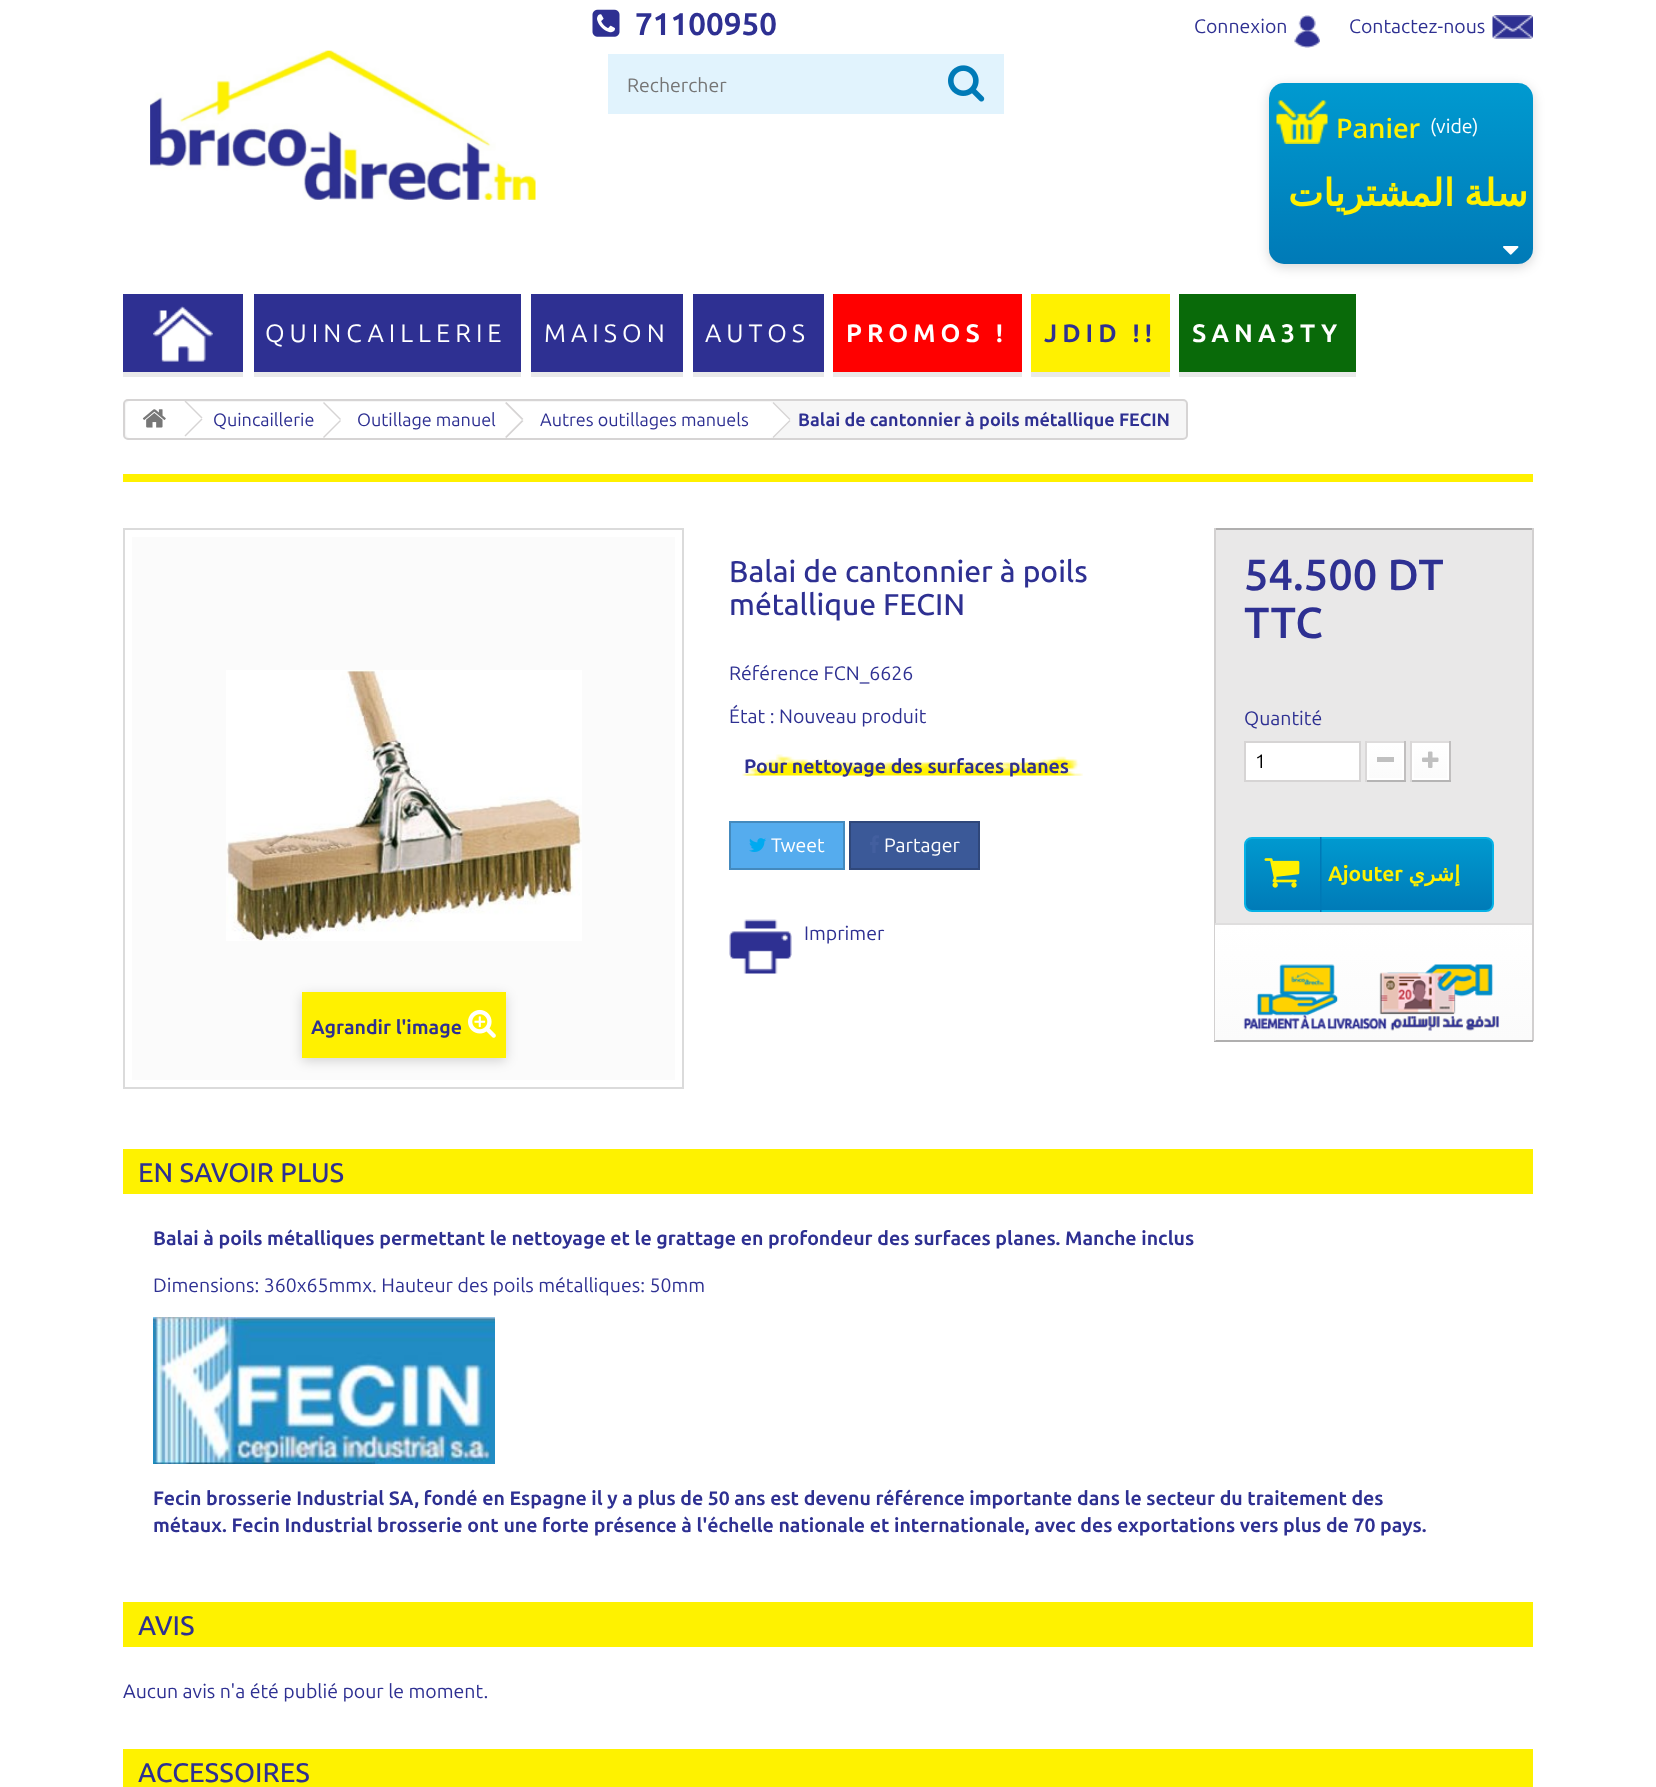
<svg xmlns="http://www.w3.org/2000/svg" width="1656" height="1787">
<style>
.a{font:bold 31.5px Ubuntu;fill:#2e3092}
.b{font:19.5px Ubuntu;fill:#2e3092}
.c{font:19.5px Ubuntu;fill:#757575}
.d{font:600 27px Open Sans;fill:#fff100}
.e{font:19.5px Ubuntu;fill:#fff}
.f{font:bold 37.5px DejaVu Sans;direction:rtl;fill:#fff100}
.g{font:25.25px Ubuntu;letter-spacing:5px;fill:#fff}
.h{font:bold 25.25px Ubuntu;letter-spacing:5px;fill:#fff}
.i{font:bold 25.25px Ubuntu;letter-spacing:5px;fill:#2e3092}
.j{font:18px Ubuntu;fill:#2e3092}
.k{font:bold 18px Ubuntu;fill:#2e3092}
.l{font:500 30px Ubuntu;fill:#2e3092}
.m{font:bold 19.5px Ubuntu;fill:#2e3092}
.n{font:600 43.5px Ubuntu;fill:#2e3092}
.o{font:19.5px Ubuntu;fill:#000}
.p{font:bold 21px Ubuntu;fill:#fff100}
.q{font:bold 21px DejaVu Sans;direction:rtl;fill:#fff100}
.r{font:500 27px Ubuntu;fill:#2e3092}
</style>
<defs>
<linearGradient id="g1" gradientUnits="userSpaceOnUse" x1="1401" y1="82" x2="1401" y2="264"><stop offset="0" stop-color="#009ad0"/><stop offset="1" stop-color="#007ab7"/></linearGradient>
<linearGradient id="g2" gradientUnits="userSpaceOnUse" x1="1385" y1="744" x2="1385" y2="779"><stop offset="0" stop-color="#fff"/><stop offset="1" stop-color="#fbfbfb"/></linearGradient>
<linearGradient id="g3" gradientUnits="userSpaceOnUse" x1="1430" y1="744" x2="1430" y2="779"><stop offset="0" stop-color="#fff"/><stop offset="1" stop-color="#fbfbfb"/></linearGradient>
<linearGradient id="g4" gradientUnits="userSpaceOnUse" x1="1369" y1="837" x2="1369" y2="912"><stop offset="0" stop-color="#009ad0"/><stop offset="1" stop-color="#007ab7"/></linearGradient>
<linearGradient id="g5" gradientUnits="userSpaceOnUse" x1="1373" y1="924" x2="1373" y2="1040"><stop offset="0" stop-color="#fff"/><stop offset="1" stop-color="#fbfbfb"/></linearGradient>
</defs>
<rect width="100%" height="100%" fill="#fff"/>
<image href="1.png" x="592" y="9" width="28" height="28"/>
<image href="2.png" x="1294" y="15" width="26" height="33"/>
<image href="3.png" x="1492" y="15" width="41" height="24"/>
<path fill="#e1f3fd" d="M608 54h396v60H608z"/>
<image href="4.png" x="948" y="65" width="37" height="37"/>
<rect fill="#00000029" filter="blur(6px)" x="1269" y="86" width="264" height="181" rx="15"/>
<rect fill="url(#g1)" x="1269" y="83" width="264" height="181" rx="15"/>
<image href="5.png" x="1276" y="100" width="52" height="44"/>
<image href="6.png" x="1503" y="246" width="16" height="9"/>
<path fill="#2e3092" d="M123 294h120v78H123z"/>
<path fill="#e9e9e9" d="M123 372h120v5H123z"/>
<image href="7.png" x="153" y="306" width="60" height="56"/>
<path fill="#2e3092" d="M254 294h267v78H254z"/>
<path fill="#e9e9e9" d="M254 372h267v5H254z"/>
<path fill="#2e3092" d="M531 294h152v78H531z"/>
<path fill="#e9e9e9" d="M531 372h152v5H531z"/>
<path fill="#2e3092" d="M693 294h131v78H693z"/>
<path fill="#e9e9e9" d="M693 372h131v5H693z"/>
<path fill="#f00" d="M833 294h189v78H833z"/>
<path fill="#e9e9e9" d="M833 372h189v5H833z"/>
<path fill="#fff100" d="M1031 294h139v78H1031z"/>
<path fill="#e9e9e9" d="M1031 372h139v5H1031z"/>
<path fill="#096a09" d="M1179 294h177v78H1179z"/>
<path fill="#e9e9e9" d="M1179 372h177v5H1179z"/>
<image href="8.png" x="150" y="50" width="386" height="150"/>
<rect fill="#f6f6f6" stroke="#d6d4d4" stroke-width="2" x="124" y="400" width="1063" height="39" rx="4"/>
<path fill="#fff" d="M131 401h52v37h-52c-3 0-5-2-5-5v-27c0-3 2-5 5-5z"/>
<image href="9.png" x="142" y="409" width="24" height="19"/>
<path fill="#fff" d="M183 402h141v36H183z"/>
<path fill="#fff" d="M186.5 401.5l-.5-.5h-3l-.5 .5l-15 15c-1 1-1 3 0 4l15 15c1 1 3 1 4 0l15-15c1-1 1-3 0-4z"/>
<path fill="#d6d4d4" d="M185.5 400.5l17 17l-1 1l-17-17z"/>
<path fill="#d6d4d4" d="M201.5 418.5l1 1l-17 17l-1-1z"/>
<path fill="#fff" d="M340 403l15 15c1 1 1 3 0 4l-15 15c-1 1-3 1-4 0l-15-15c-1-1-1-3 0-4l15-15c1-1 3-1 4 0z"/>
<path fill="#fff" d="M324 402h183v36H324z"/>
<path fill="#d6d4d4" d="M324 402l17 17l-1 1l-17-17zm16 18l1 1l-17 17l-1-1z"/>
<path fill="#fff" d="M522.5 403l14.5 15c1.5 1 1.5 3 0 4l-14.5 15c-1.5 1-3 1-4.5 0l-14.5-15c-1.5-1-1.5-3 0-4l14.5-15c1.5-1 3-1 4.5 0z"/>
<path fill="#fff" d="M507 402h264v36H507z"/>
<path fill="#d6d4d4" d="M506.5 402l17 17l-1.5 1l-17-17zm15.5 18l1.5 1l-17 17l-1.5-1z"/>
<path fill="#fff" d="M774.5 403l15 15c1 1 1 3 0 4l-15 15c-1 1-3 1-4 0l-15-15c-1-1-1-3 0-4l15-15c1-1 3-1 4 0z"/>
<path fill="#d6d4d4" d="M773.5 402l17 17l-1 1l-17-17zm16 18l1 1l-17 17l-1-1z"/>
<path fill="#fff100" d="M123 474h1410v8H123z"/>
<image href="10.png" x="742" y="754" width="341" height="22"/>
<path fill="#55acee" stroke="#448abe" stroke-width="2" d="M730 822h114v47H730z"/>
<image href="11.png" x="749" y="838" width="17" height="14"/>
<path fill="#3b5998" stroke="#2f477a" stroke-width="2" d="M850 822h129v47H850z"/>
<image href="12.png" x="870" y="835" width="9" height="18"/>
<image href="13.png" x="729" y="919" width="63" height="55"/>
<path fill="#e9e8e8" d="M1216 530h316v393H1216z"/>
<path fill="#b0afaf" d="M1214 528h319v2H1214z"/>
<path fill="#d2d0d0" d="M1532 528h2v513H1532z"/>
<path fill="#b0afaf" d="M1214 1040h319v2H1214z"/>
<path fill="#d2d0d0" d="M1214 528h2v513H1214z"/>
<path fill="#fff" stroke="#d6d4d4" stroke-width="2" d="M1245 742h115v39H1245z"/>
<path fill="#dedcdc" d="M1365 741h41v2H1365z"/>
<path fill="#c1bfbf" d="M1404 741h2v41H1404z"/>
<path fill="#b5b4b4" d="M1365 780h41v2H1365z"/>
<path fill="#dad8d8" d="M1365 741h2v41H1365z"/>
<path fill="url(#g2)" d="M1369 745h33v33H1369z"/>
<path fill="none" stroke="#fff" stroke-width="2" d="M1368 744h35v35H1368z"/>
<path fill="#c0c0c0" d="M1377 757h17v5H1377z"/>
<path fill="#dedcdc" d="M1410 741h41v2H1410z"/>
<path fill="#c1bfbf" d="M1449 741h2v41H1449z"/>
<path fill="#b5b4b4" d="M1410 780h41v2H1410z"/>
<path fill="#dad8d8" d="M1410 741h2v41H1410z"/>
<path fill="url(#g3)" d="M1414 745h33v33H1414z"/>
<path fill="none" stroke="#fff" stroke-width="2" d="M1413 744h35v35H1413z"/>
<image href="14.png" x="1422" y="751" width="17" height="17"/>
<rect fill="url(#g4)" stroke="#06b2e6" stroke-width="2" x="1245" y="838" width="248" height="73" rx="7"/>
<image href="15.png" x="1264" y="858" width="36" height="30"/>
<image href="16.png" x="1320" y="837" width="2" height="75"/>
<path fill="url(#g5)" d="M1215 925h317v115H1215z"/>
<path fill="#dfdede" d="M1215 923h317v2H1215z"/>
<image href="17.png" x="1243" y="964" width="257" height="67"/>
<path fill="none" stroke="#dbdbdb" stroke-width="2" d="M124 529h559v559H124z"/>
<path fill="#fbfbfb" d="M132 537h543v543H132z"/>
<image href="18.png" x="226" y="670" width="356" height="271"/>
<path fill="#00000029" filter="blur(6px)" d="M302 995h204v66H302z"/>
<path fill="#fff100" d="M302 992h204v66H302z"/>
<image href="19.png" x="468" y="1009" width="28" height="29"/>
<path fill="#fef200" d="M123 1149h1410v45H123z"/>
<image href="20.png" x="153" y="1317" width="342" height="147"/>
<path fill="#fef200" d="M123 1602h1410v45H123z"/>
<path fill="#fef200" d="M123 1749h1410v38H123z"/>
<text class="a" x="635" y="35">71100950</text>
<text class="b" x="1194" y="33">Connexion</text>
<text class="b" x="1349" y="33">Contactez-nous</text>
<text class="c" x="627" y="92">Rechercher</text>
<text class="d" x="1336" y="138">Panier</text>
<text class="e" x="1430" y="133">(vide)</text>
<text class="f" x="1528" y="206" word-spacing="-2">سلة المشتريات</text>
<text class="g" x="265" y="342">QUINCAILLERIE</text>
<text class="g" x="544" y="342">MAISON</text>
<text class="g" x="705" y="342">AUTOS</text>
<text class="h" x="846" y="342">PROMOS !</text>
<text class="i" x="1044" y="342">JDID !!</text>
<text class="h" x="1192" y="342">SANA3TY</text>
<text class="j" x="213" y="426">Quincaillerie</text>
<text class="j" x="357" y="426">Outillage manuel</text>
<text class="j" x="540" y="426">Autres outillages manuels</text>
<text class="k" x="798" y="426">Balai de cantonnier à poils métallique FECIN</text>
<text class="l" x="729" y="582">Balai de cantonnier à poils</text>
<text class="l" x="729" y="615">métallique FECIN</text>
<text class="b" x="729" y="680">Référence FCN_6626</text>
<text class="b" x="729" y="723">État : Nouveau produit</text>
<text class="m" x="744" y="773">Pour nettoyage des surfaces planes</text>
<text class="e" x="771" y="852">Tweet</text>
<text class="e" x="884" y="852">Partager</text>
<text class="b" x="804" y="940">Imprimer</text>
<text class="n" x="1244" y="590">54.500 DT</text>
<text class="n" x="1244" y="638">TTC</text>
<text class="b" x="1244" y="725">Quantité</text>
<text class="o" x="1255" y="768">1</text>
<text class="p" x="1328" y="881">Ajouter</text>
<text class="q" x="1460" y="881">إشري</text>
<text class="m" x="311" y="1034">Agrandir l'image</text>
<text class="r" x="138" y="1182">EN SAVOIR PLUS</text>
<text class="m" x="153" y="1245">Balai à poils métalliques permettant le nettoyage et le grattage en profondeur des surfaces planes. Manche inclus</text>
<text class="b" x="153" y="1292">Dimensions: 360x65mmx. Hauteur des poils métalliques: 50mm</text>
<text class="m" x="153" y="1505">Fecin brosserie Industrial SA, fondé en Espagne il y a plus de 50 ans est devenu référence importante dans le secteur du traitement des</text>
<text class="m" x="153" y="1532">métaux. Fecin Industrial brosserie ont une forte présence à l'échelle nationale et internationale, avec des exportations vers plus de 70 pays.</text>
<text class="r" x="138" y="1635">AVIS</text>
<text class="b" x="123" y="1698">Aucun avis n'a été publié pour le moment.</text>
<text class="r" x="138" y="1782">ACCESSOIRES</text>
</svg>
